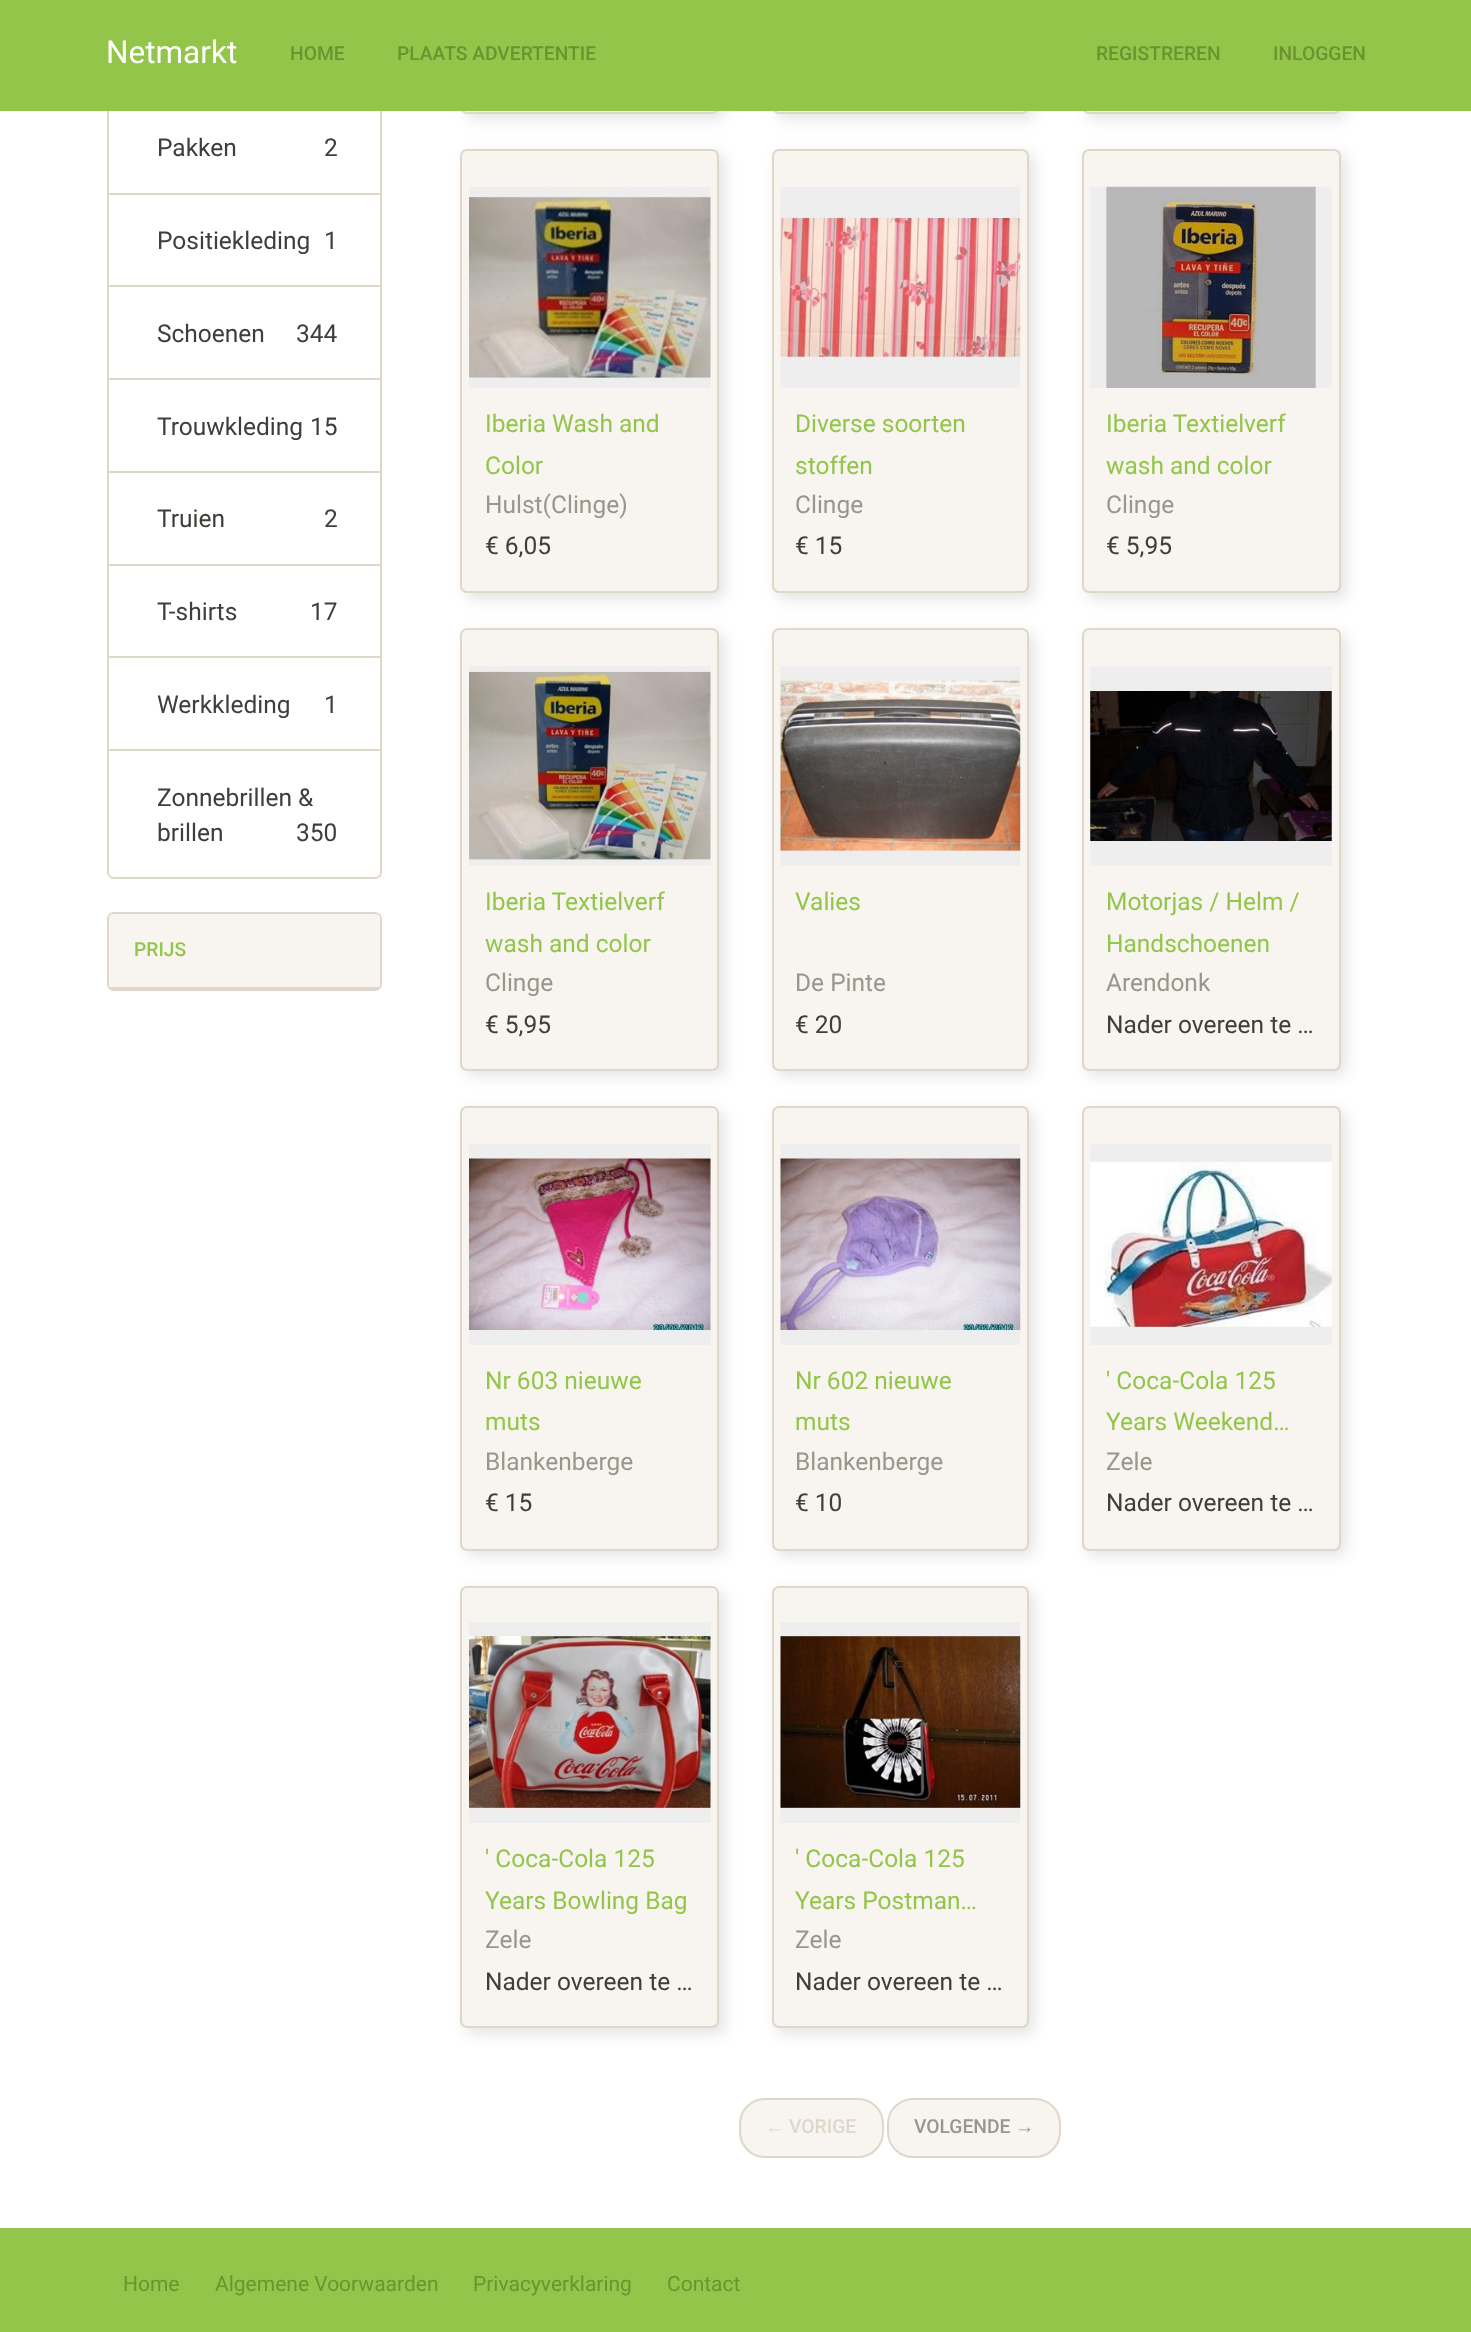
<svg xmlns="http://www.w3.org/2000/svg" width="1471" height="2332">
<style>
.a{font:31.5px Roboto;fill:#fff}
.b{font:500 19.25px Roboto;fill:#6b9430}
.c{font:24.5px Roboto;fill:#3e3f3a}
.d{font:500 19.25px Roboto;fill:#93c54b}
.e{font:24.5px Roboto;fill:#93c54b}
.f{font:24.5px Roboto;fill:#98978b}
.g{font:19.25px Liberation Sans;fill:#dfd7ca}
.h{font:500 19.25px Roboto;fill:#dfd7ca}
.i{font:500 19.25px Roboto;fill:#98978b}
.j{font:19.25px Liberation Sans;fill:#98978b}
.k{font:21px Roboto;fill:#6b9430}
</style>
<rect width="100%" height="100%" fill="#fff"/>
<rect fill="none" stroke="#dfd7ca" stroke-width="2" x="108" y="-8" width="273" height="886" rx="6"/>
<rect fill="#4b4b4b26" filter="blur(7px)" x="466" y="-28" width="259" height="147" rx="7"/>
<rect fill="#f8f5f0" stroke="#dfd7ca" stroke-width="2" x="461" y="-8" width="257" height="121" rx="6"/>
<rect fill="#4b4b4b26" filter="blur(7px)" x="777" y="-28" width="257" height="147" rx="7"/>
<rect fill="#f8f5f0" stroke="#dfd7ca" stroke-width="2" x="773" y="-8" width="255" height="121" rx="6"/>
<rect fill="#4b4b4b26" filter="blur(7px)" x="1087" y="-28" width="259" height="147" rx="7"/>
<rect fill="#f8f5f0" stroke="#dfd7ca" stroke-width="2" x="1083" y="-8" width="257" height="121" rx="6"/>
<path fill="#93c54b" d="M0 0h1471v111H0z"/>
<path fill="#dfd7ca" d="M109 193h271v2H109z"/>
<path fill="#dfd7ca" d="M109 285h271v2H109z"/>
<path fill="#dfd7ca" d="M109 378h271v2H109z"/>
<path fill="#dfd7ca" d="M109 471h271v2H109z"/>
<path fill="#dfd7ca" d="M109 564h271v2H109z"/>
<path fill="#dfd7ca" d="M109 656h271v2H109z"/>
<path fill="#fff" d="M109 749h271v123c0 3-2 5-5 5h-261c-3 0-5-2-5-5z"/>
<path fill="#dfd7ca" d="M109 749h271v2H109z"/>
<rect fill="none" stroke="#dfd7ca" stroke-width="2" x="108" y="913" width="273" height="77" rx="6"/>
<path fill="#f8f5f0" d="M114 914h261c3 0 5 2 5 5v70h-271v-70c0-3 2-5 5-5z"/>
<path fill="#dfd7ca" d="M109 987h271v2H109z"/>
<rect fill="#4b4b4b26" filter="blur(7px)" x="466" y="154" width="259" height="445" rx="7"/>
<rect fill="#f8f5f0" stroke="#dfd7ca" stroke-width="2" x="461" y="150" width="257" height="442" rx="6"/>
<image href="1.png" x="469" y="187" width="242" height="201"/>
<rect fill="#4b4b4b26" filter="blur(7px)" x="777" y="154" width="257" height="445" rx="7"/>
<rect fill="#f8f5f0" stroke="#dfd7ca" stroke-width="2" x="773" y="150" width="255" height="442" rx="6"/>
<image href="2.png" x="780" y="187" width="241" height="201"/>
<rect fill="#4b4b4b26" filter="blur(7px)" x="1087" y="154" width="259" height="445" rx="7"/>
<rect fill="#f8f5f0" stroke="#dfd7ca" stroke-width="2" x="1083" y="150" width="257" height="442" rx="6"/>
<image href="3.png" x="1090" y="186" width="242" height="202"/>
<rect fill="#4b4b4b26" filter="blur(7px)" x="466" y="634" width="259" height="442" rx="7"/>
<rect fill="#f8f5f0" stroke="#dfd7ca" stroke-width="2" x="461" y="629" width="257" height="441" rx="6"/>
<image href="4.png" x="469" y="666" width="242" height="200"/>
<rect fill="#4b4b4b26" filter="blur(7px)" x="777" y="634" width="257" height="442" rx="7"/>
<rect fill="#f8f5f0" stroke="#dfd7ca" stroke-width="2" x="773" y="629" width="255" height="441" rx="6"/>
<image href="5.png" x="780" y="666" width="241" height="200"/>
<rect fill="#4b4b4b26" filter="blur(7px)" x="1087" y="634" width="259" height="442" rx="7"/>
<rect fill="#f8f5f0" stroke="#dfd7ca" stroke-width="2" x="1083" y="629" width="257" height="441" rx="6"/>
<image href="6.png" x="1090" y="666" width="242" height="200"/>
<rect fill="#4b4b4b26" filter="blur(7px)" x="466" y="1111" width="259" height="445" rx="7"/>
<rect fill="#f8f5f0" stroke="#dfd7ca" stroke-width="2" x="461" y="1107" width="257" height="443" rx="6"/>
<image href="7.png" x="469" y="1144" width="242" height="201"/>
<rect fill="#4b4b4b26" filter="blur(7px)" x="777" y="1111" width="257" height="445" rx="7"/>
<rect fill="#f8f5f0" stroke="#dfd7ca" stroke-width="2" x="773" y="1107" width="255" height="443" rx="6"/>
<image href="8.png" x="780" y="1144" width="241" height="201"/>
<rect fill="#4b4b4b26" filter="blur(7px)" x="1087" y="1111" width="259" height="445" rx="7"/>
<rect fill="#f8f5f0" stroke="#dfd7ca" stroke-width="2" x="1083" y="1107" width="257" height="443" rx="6"/>
<image href="9.png" x="1090" y="1144" width="242" height="201"/>
<rect fill="#4b4b4b26" filter="blur(7px)" x="466" y="1591" width="259" height="443" rx="7"/>
<rect fill="#f8f5f0" stroke="#dfd7ca" stroke-width="2" x="461" y="1587" width="257" height="440" rx="6"/>
<image href="10.png" x="469" y="1622" width="242" height="201"/>
<rect fill="#4b4b4b26" filter="blur(7px)" x="777" y="1591" width="257" height="443" rx="7"/>
<rect fill="#f8f5f0" stroke="#dfd7ca" stroke-width="2" x="773" y="1587" width="255" height="440" rx="6"/>
<image href="11.png" x="780" y="1622" width="241" height="201"/>
<rect fill="#f8f5f0" stroke="#dfd7ca" stroke-width="2" x="740" y="2099" width="143" height="58" rx="25"/>
<rect fill="#f8f5f0" stroke="#dfd7ca" stroke-width="2" x="888" y="2099" width="172" height="58" rx="25"/>
<path fill="#93c54b" d="M0 2228h1471v104H0z"/>
<text class="a" x="106" y="63">Netmarkt</text>
<text class="b" x="290" y="60">HOME</text>
<text class="b" x="397" y="60">PLAATS ADVERTENTIE</text>
<text class="b" x="1096" y="60">REGISTREREN</text>
<text class="b" x="1273" y="60">INLOGGEN</text>
<text class="c" x="157" y="156">Pakken</text>
<text class="c" x="324" y="156">2</text>
<text class="c" x="157" y="249">Positiekleding</text>
<text class="c" x="324" y="249">1</text>
<text class="c" x="157" y="342">Schoenen</text>
<text class="c" x="296" y="342">344</text>
<text class="c" x="157" y="435">Trouwkleding</text>
<text class="c" x="310" y="435">15</text>
<text class="c" x="157" y="527">Truien</text>
<text class="c" x="324" y="527">2</text>
<text class="c" x="157" y="620">T-shirts</text>
<text class="c" x="310" y="620">17</text>
<text class="c" x="157" y="713">Werkkleding</text>
<text class="c" x="324" y="713">1</text>
<text class="c" x="157" y="806">Zonnebrillen &amp;</text>
<text class="c" x="157" y="841">brillen</text>
<text class="c" x="296" y="841">350</text>
<text class="d" x="134" y="956">PRIJS</text>
<text class="e" x="485" y="432">Iberia Wash and</text>
<text class="e" x="485" y="474">Color</text>
<text class="f" x="485" y="513">Hulst(Clinge)</text>
<text class="c" x="485" y="554">€ 6,05</text>
<text class="e" x="795" y="432">Diverse soorten</text>
<text class="e" x="795" y="474">stoffen</text>
<text class="f" x="795" y="513">Clinge</text>
<text class="c" x="795" y="554">€ 15</text>
<text class="e" x="1106" y="432">Iberia Textielverf</text>
<text class="e" x="1106" y="474">wash and color</text>
<text class="f" x="1106" y="513">Clinge</text>
<text class="c" x="1106" y="554">€ 5,95</text>
<text class="e" x="485" y="910">Iberia Textielverf</text>
<text class="e" x="485" y="952">wash and color</text>
<text class="f" x="485" y="991">Clinge</text>
<text class="c" x="485" y="1033">€ 5,95</text>
<text class="e" x="795" y="910">Valies</text>
<text class="f" x="795" y="991">De Pinte</text>
<text class="c" x="795" y="1033">€ 20</text>
<text class="e" x="1106" y="910">Motorjas / Helm /</text>
<text class="e" x="1106" y="952">Handschoenen</text>
<text class="f" x="1106" y="991">Arendonk</text>
<text class="c" x="1106" y="1033">Nader overeen te …</text>
<text class="e" x="485" y="1389">Nr 603 nieuwe</text>
<text class="e" x="485" y="1430">muts</text>
<text class="f" x="485" y="1470">Blankenberge</text>
<text class="c" x="485" y="1511">€ 15</text>
<text class="e" x="795" y="1389">Nr 602 nieuwe</text>
<text class="e" x="795" y="1430">muts</text>
<text class="f" x="795" y="1470">Blankenberge</text>
<text class="c" x="795" y="1511">€ 10</text>
<text class="e" x="1106" y="1389">' Coca-Cola 125</text>
<text class="e" x="1106" y="1430">Years Weekend…</text>
<text class="f" x="1106" y="1470">Zele</text>
<text class="c" x="1106" y="1511">Nader overeen te …</text>
<text class="e" x="485" y="1867">' Coca-Cola 125</text>
<text class="e" x="485" y="1909">Years Bowling Bag</text>
<text class="f" x="485" y="1948">Zele</text>
<text class="c" x="485" y="1990">Nader overeen te …</text>
<text class="e" x="795" y="1867">' Coca-Cola 125</text>
<text class="e" x="795" y="1909">Years Postman…</text>
<text class="f" x="795" y="1948">Zele</text>
<text class="c" x="795" y="1990">Nader overeen te …</text>
<text class="g" x="765" y="2133">←</text>
<text class="h" x="789" y="2133">VORIGE</text>
<text class="i" x="914" y="2133">VOLGENDE</text>
<text class="j" x="1015" y="2133">→</text>
<text class="k" x="123" y="2291">Home</text>
<text class="k" x="215" y="2291">Algemene Voorwaarden</text>
<text class="k" x="473" y="2291">Privacyverklaring</text>
<text class="k" x="667" y="2291">Contact</text>
</svg>
